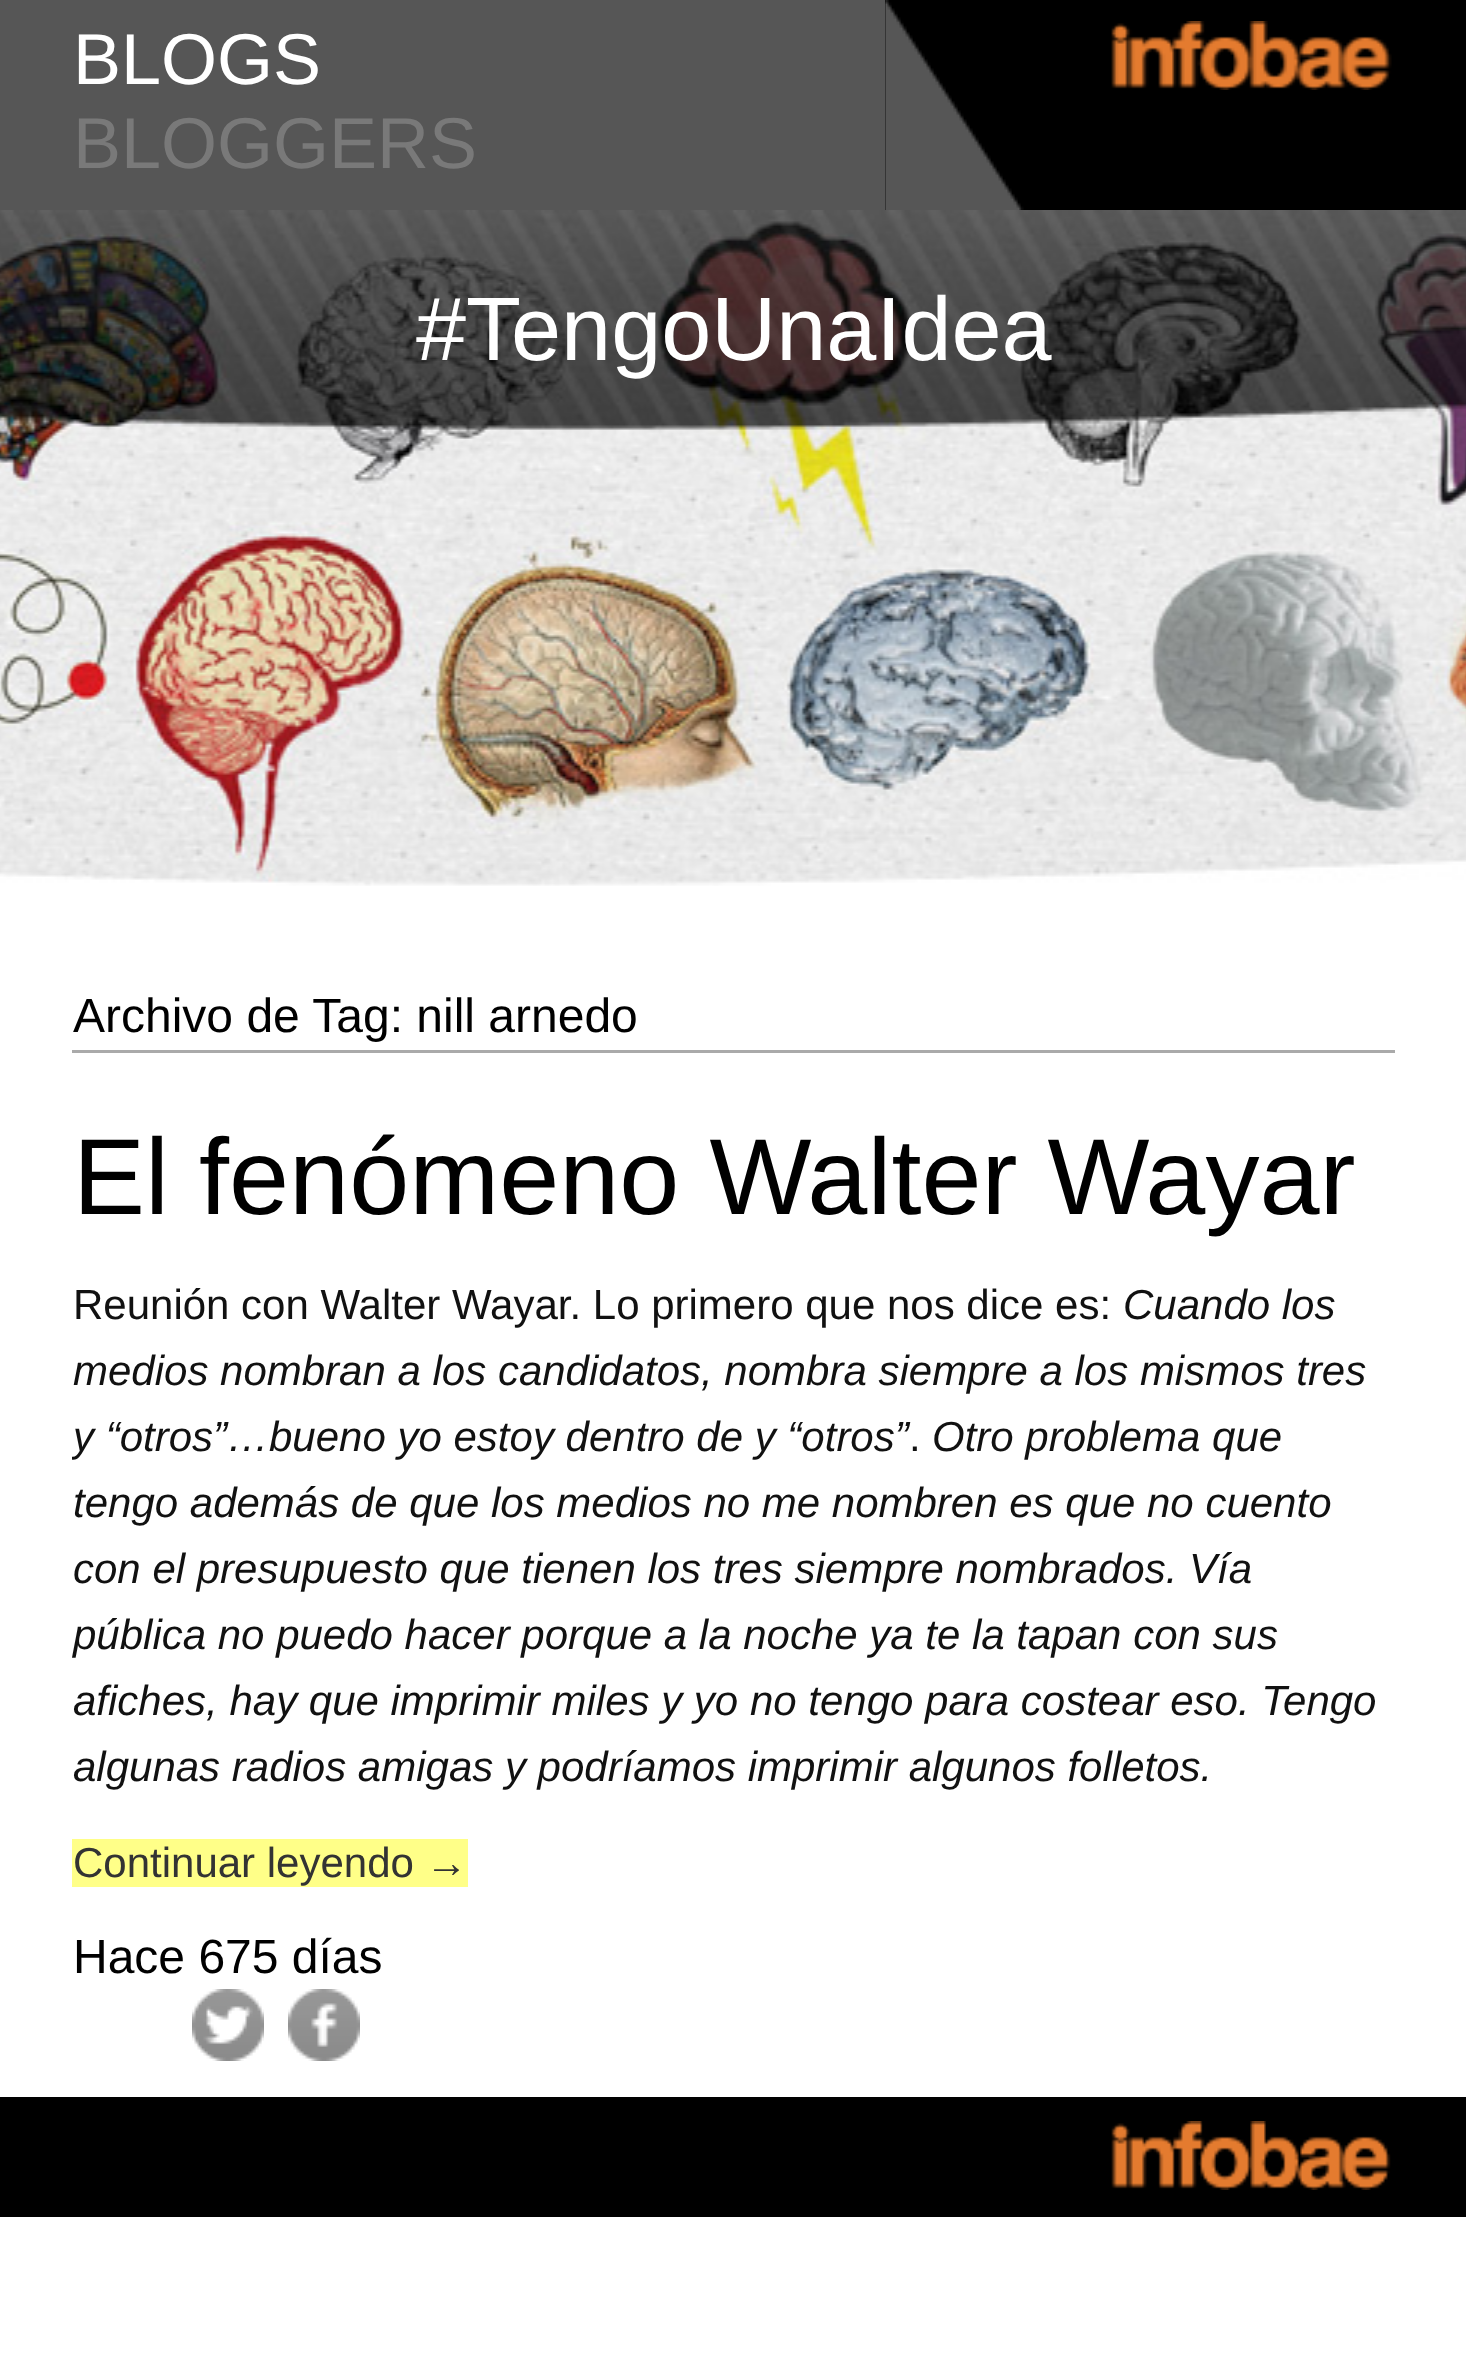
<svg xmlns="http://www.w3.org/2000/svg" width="1466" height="2369">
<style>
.a{font:72px Liberation Sans;fill:#fff}
.b{font:72px Liberation Sans;fill:#797979}
.c{font:90px Liberation Sans;fill:#fff}
.d{font:48px Liberation Sans;fill:#000}
.e{font:108px Liberation Sans;fill:#000}
.f{font:42px Liberation Sans;fill:#111}
.g{font:italic 42px Liberation Sans;fill:#111}
.h{font:42px Liberation Sans;fill:#333}
</style>
<defs>
<clipPath id="clip1"><path d="M72 984h1323v1113H72z"/></clipPath>
</defs>
<rect width="100%" height="100%" fill="#fff"/>
<path fill="#565656" d="M0 0h885v210H0z"/>
<path fill="#000" d="M885 0h581v210H885z"/>
<image href="1.png" x="885" y="0" width="139" height="210"/>
<image href="2.png" x="1111" y="21" width="281" height="69"/>
<image href="3.png" x="0" y="210" width="1466" height="676"/>
<path fill="#aaa" d="M72 1050h1323v3H72z"/>
<path fill="#ff8" d="M72 1839h396v48H72z"/>
<image href="4.png" x="192" y="1989" width="72" height="72"/>
<image href="5.png" x="288" y="1989" width="72" height="72"/>
<path fill="#000" d="M0 2097h1466v120H0z"/>
<image href="6.png" x="1111" y="2121" width="280" height="69"/>
<text class="a" x="73" y="84">BLOGS</text>
<text class="b" x="73" y="168">BLOGGERS</text>
<text class="c" x="416" y="360">#TengoUnaIdea</text>
<text class="d" x="73" y="1032">Archivo de Tag: nill arnedo</text>
<text class="e" x="73" y="1214">El fenómeno Walter Wayar</text>
<text class="f" x="73" y="1319">Reunión con Walter Wayar. Lo primero que nos dice es:</text>
<text class="g" x="1123" y="1319">Cuando los</text>
<text class="g" x="73" y="1385">medios nombran a los candidatos, nombra siempre a los mismos tres</text>
<g clip-path="url(#clip1)">
<text class="g" x="73" y="1451">y “otros”…bueno yo estoy dentro de y “otros”</text>
</g>
<text class="f" x="909" y="1451">.</text>
<text class="g" x="932" y="1451">Otro problema que</text>
<text class="g" x="73" y="1517">tengo además de que los medios no me nombren es que no cuento</text>
<text class="g" x="73" y="1583">con el presupuesto que tienen los tres siempre nombrados. Vía</text>
<text class="g" x="73" y="1649">pública no puedo hacer porque a la noche ya te la tapan con sus</text>
<text class="g" x="73" y="1715">afiches, hay que imprimir miles y yo no tengo para costear eso. Tengo</text>
<text class="g" x="73" y="1781">algunas radios amigas y podríamos imprimir algunos folletos.</text>
<text class="h" x="73" y="1877">Continuar leyendo →</text>
<text class="d" x="73" y="1973">Hace 675 días</text>
</svg>
